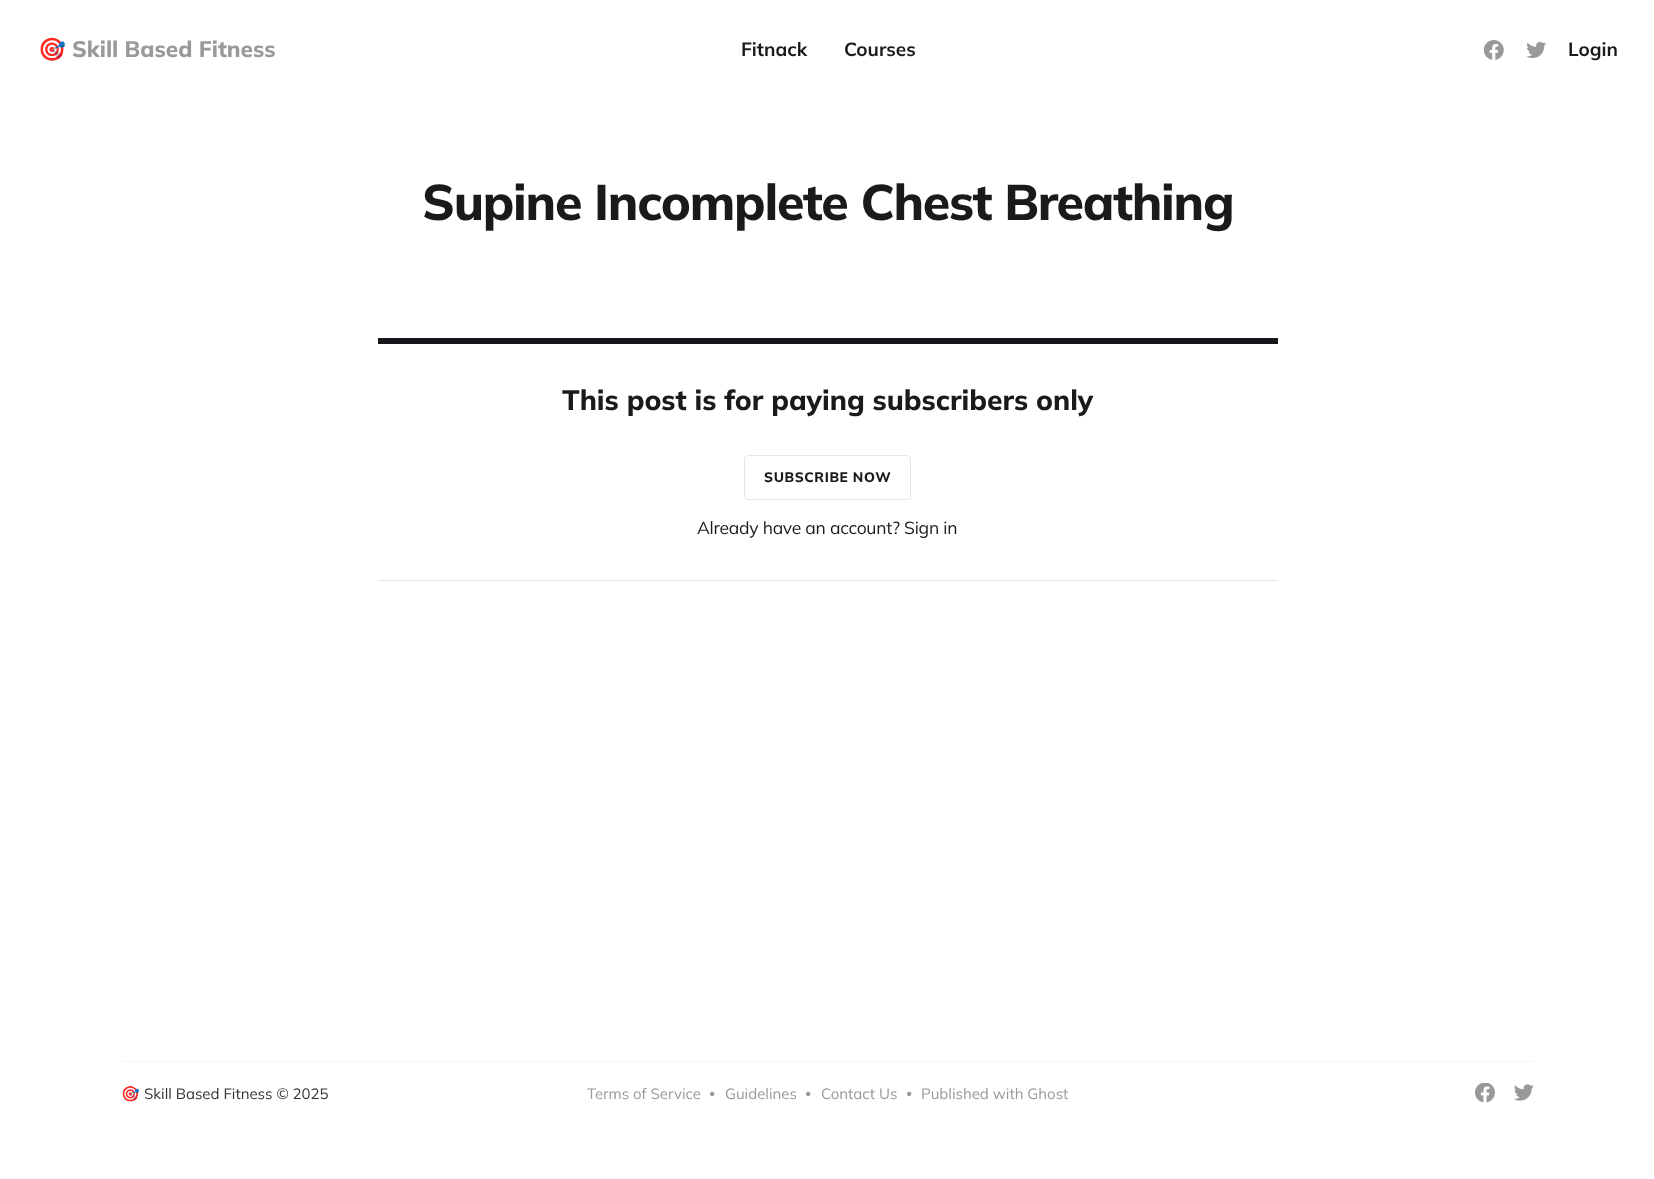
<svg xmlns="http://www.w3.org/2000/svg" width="1654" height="1179">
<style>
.a{font:bold 22.5px Noto Color Emoji;fill:#999}
.b{font:800 22.5px Mulish;fill:#999}
.c{font:bold 19px Mulish;fill:#1a1a1a}
.d{font:800 50px Mulish;letter-spacing:-1.25px;fill:#1a1a1a}
.e{font:800 28.1px Mulish;fill:#1a1a1a}
.f{font:800 13.75px Mulish;letter-spacing:0.6px;fill:#1a1a1a}
.g{font:17.5px Mulish;letter-spacing:-0.25px;fill:#1a1a1a}
.h{font:15px Noto Color Emoji;fill:#333}
.i{font:15px Mulish;fill:#333}
.j{font:15px Mulish;fill:#999}
.k{font:12px Mulish;fill:#999}
</style>
<rect width="100%" height="100%" fill="#fff"/>
<image href="1.png" x="1484" y="40" width="20" height="20"/>
<image href="2.png" x="1526" y="41" width="20" height="18"/>
<path fill="#15171a" d="M378 338h900v6H378z"/>
<path fill="#e6e6e6" d="M378 580h900v1H378z"/>
<rect fill="none" stroke="#e6e6e6" x="744.5" y="455.5" width="166" height="44" rx="3.5"/>
<path fill="#f6f6f6" d="M121 1061h1413v1H121z"/>
<image href="3.png" x="1475" y="1083" width="20" height="20"/>
<image href="4.png" x="1514" y="1084" width="20" height="17"/>
<text class="a" x="38" y="57">🎯</text>
<text class="b" x="72" y="57">Skill Based Fitness</text>
<text class="c" x="741" y="56">Fitnack</text>
<text class="c" x="844" y="56">Courses</text>
<text class="c" x="1568" y="56">Login</text>
<text class="d" x="422" y="220">Supine Incomplete Chest Breathing</text>
<text class="e" x="562" y="410">This post is for paying subscribers only</text>
<text class="f" x="764" y="482">SUBSCRIBE NOW</text>
<text class="g" x="697" y="534">Already have an account? Sign in</text>
<text class="h" x="121" y="1099">🎯</text>
<text class="i" x="144" y="1099">Skill Based Fitness © 2025</text>
<text class="j" x="587" y="1099">Terms of Service</text>
<text class="k" x="709" y="1097">•</text>
<text class="j" x="725" y="1099">Guidelines</text>
<text class="k" x="805" y="1097">•</text>
<text class="j" x="821" y="1099">Contact Us</text>
<text class="k" x="906" y="1097">•</text>
<text class="j" x="921" y="1099">Published with Ghost</text>
</svg>
